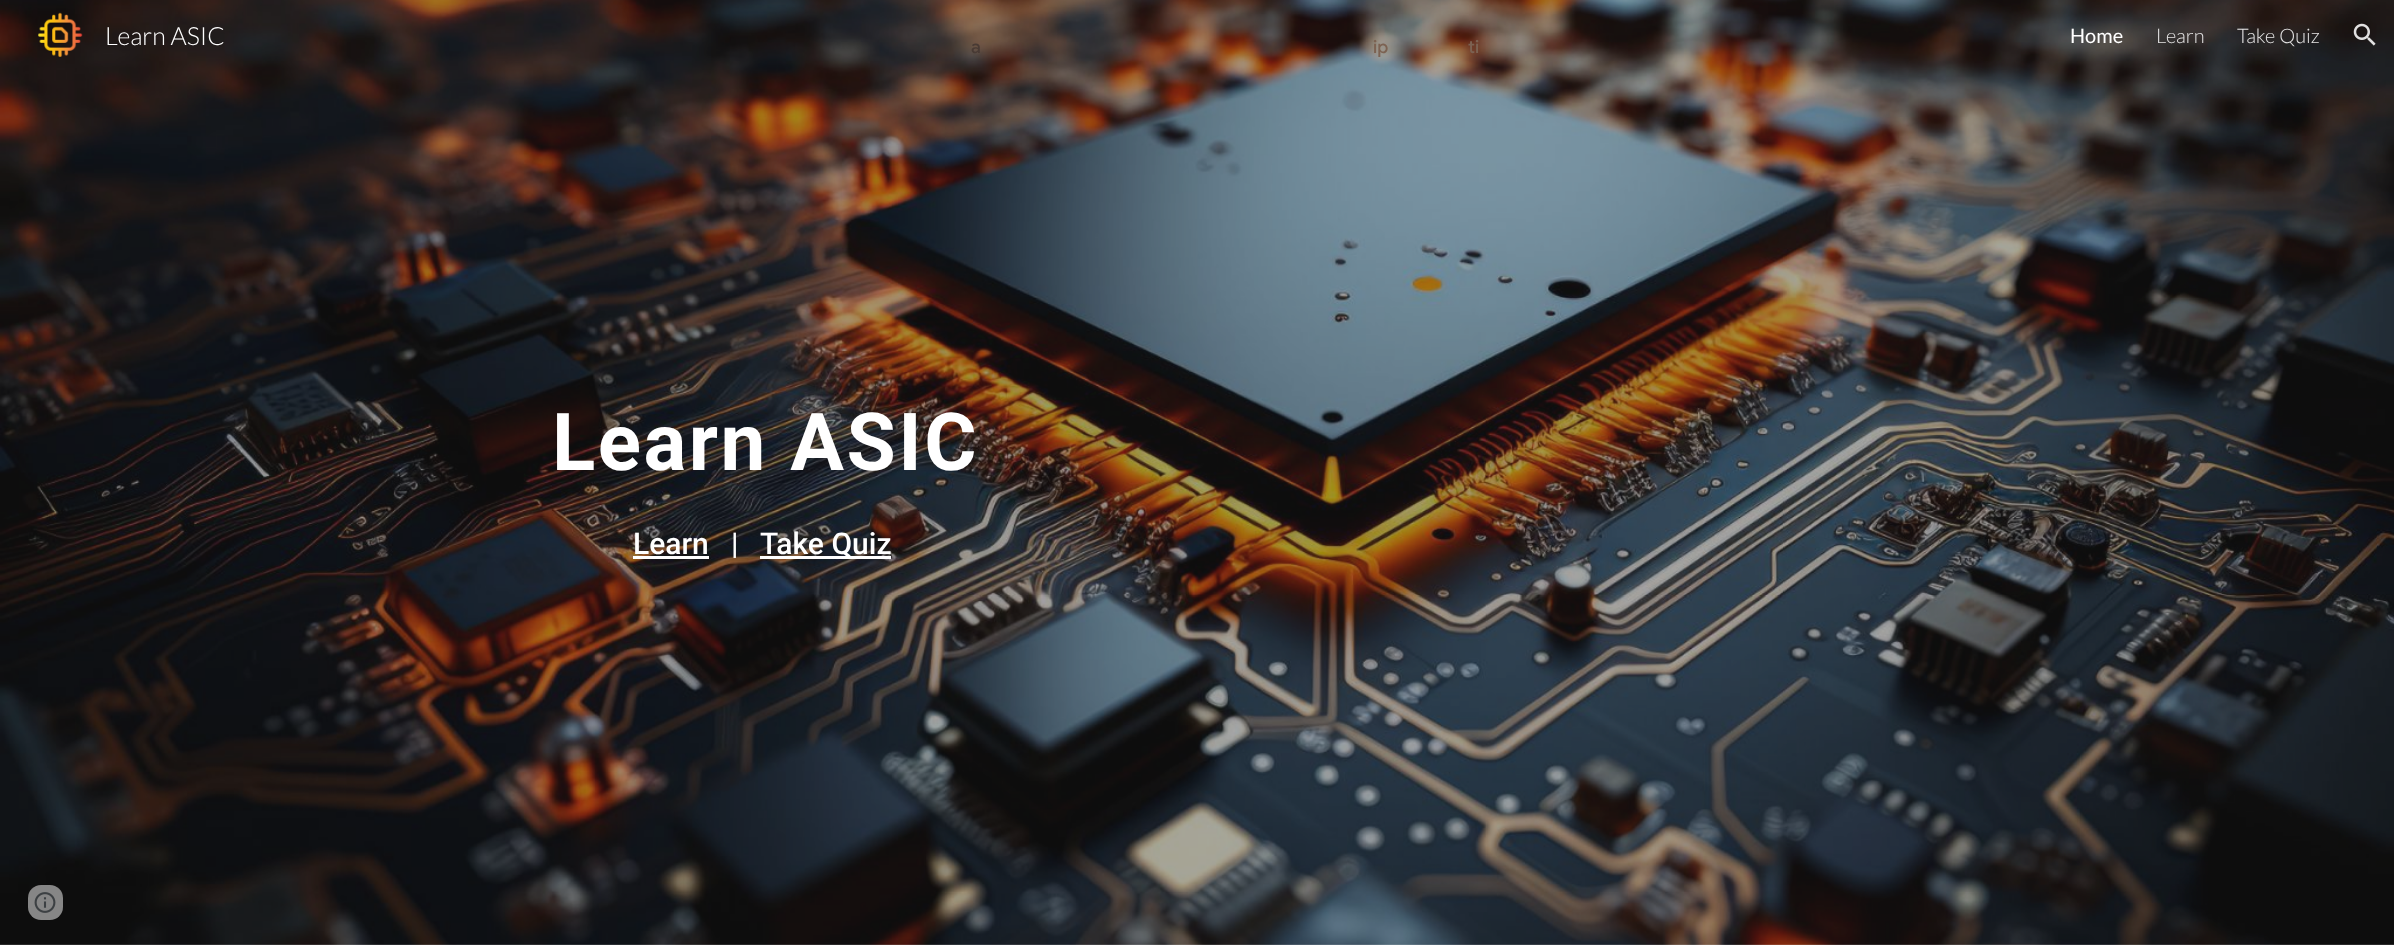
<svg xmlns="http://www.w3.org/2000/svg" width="2394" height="945">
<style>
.a{font:300 25px Lato;fill:#fff}
.b{font:20px Lato;fill:#fff}
.c{font:300 20px Lato;fill:#e5e4e4}
.d{font:bold 80px Roboto;letter-spacing:2.5px;fill:#fff}
.e{font:500 30px Roboto;fill:#fff}
.f{font:500 18px Google Sans;fill:#483a34}
.g{font:500 18px Google Sans;fill:#7c6252}
</style>
<rect width="100%" height="100%" fill="#fff"/>
<image href="3.png" x="0" y="0" width="2394" height="945"/>
<image href="1.png" x="38" y="12" width="45" height="45"/>
<image href="2.png" x="2353" y="23" width="23" height="23"/>
<path fill="#fff" d="M633 556h76v3H633z"/>
<path fill="#fff" d="M760 556h131v3H760z"/>
<rect fill="#868686" x="28" y="885" width="35" height="35" rx="13"/>
<image href="4.png" x="34" y="892" width="22" height="21"/>
<text class="a" x="105" y="45">Learn ASIC</text>
<text class="b" x="2070" y="43">Home</text>
<text class="c" x="2156" y="43">Learn</text>
<text class="c" x="2237" y="43">Take Quiz</text>
<text class="d" x="552" y="470">Learn ASIC</text>
<text class="e" x="633" y="554">Learn</text>
<text class="e" x="731" y="554">|</text>
<text class="e" x="760" y="554">Take Quiz</text>
<text class="f" x="971" y="53">a</text>
<text class="g" x="1373" y="53">ip</text>
<text class="g" x="1468" y="53">ti</text>
</svg>
